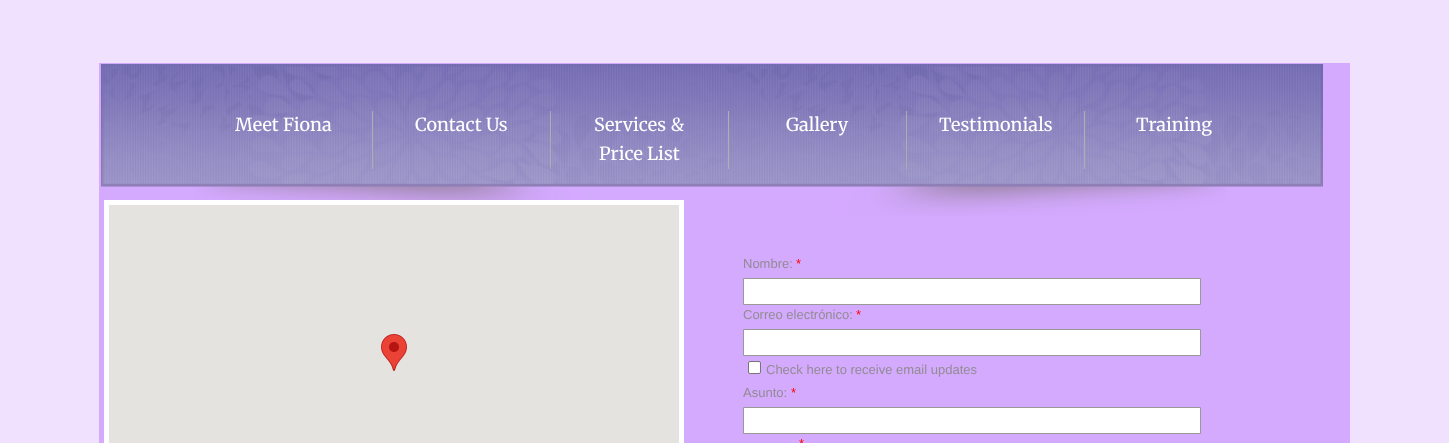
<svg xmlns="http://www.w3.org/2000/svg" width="1449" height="443">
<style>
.a{font:300 18px Merriweather;fill:#fff}
.b{font:13px Liberation Sans;fill:#928b91}
.c{font:13px Liberation Sans;fill:#f00}
</style>
<rect width="100%" height="100%" fill="#f0e2ff"/>
<path fill="#d4aaff" d="M99 63h1251v380H99z"/>
<image href="1.png" x="101" y="64" width="1222" height="152"/>
<path fill="#aeaeae" d="M372 111h1v58H372z"/>
<path fill="#aeaeae" d="M550 111h1v58H550z"/>
<path fill="#aeaeae" d="M728 111h1v58H728z"/>
<path fill="#aeaeae" d="M906 111h1v58H906z"/>
<path fill="#aeaeae" d="M1084 111h1v58H1084z"/>
<path fill="none" stroke="#fff" stroke-width="5" d="M106.5 202.5h575v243H106.5z"/>
<path fill="#e5e3df" d="M109 205h570v238H109z"/>
<image href="2.png" x="381" y="334" width="26" height="37"/>
<path fill="#fff" stroke="#999" d="M743.5 278.5h457v26H743.5z"/>
<path fill="#fff" stroke="#999" d="M743.5 329.5h457v26H743.5z"/>
<rect fill="#fff" stroke="#767676" x="748.5" y="361.5" width="12" height="12" rx="1.5"/>
<path fill="#fff" stroke="#999" d="M743.5 407.5h457v26H743.5z"/>
<text class="a" x="235" y="131">Meet Fiona</text>
<text class="a" x="415" y="131">Contact Us</text>
<text class="a" x="594" y="131">Services &amp;</text>
<text class="a" x="599" y="160">Price List</text>
<text class="a" x="786" y="131">Gallery</text>
<text class="a" x="939" y="131">Testimonials</text>
<text class="a" x="1136" y="131">Training</text>
<text class="b" x="743" y="268">Nombre:</text>
<text class="c" x="796" y="268">*</text>
<text class="b" x="743" y="319">Correo electrónico:</text>
<text class="c" x="856" y="319">*</text>
<text class="b" x="766" y="374">Check here to receive email updates</text>
<text class="b" x="743" y="397">Asunto:</text>
<text class="c" x="791" y="397">*</text>
<text class="c" x="799" y="448">*</text>
</svg>
